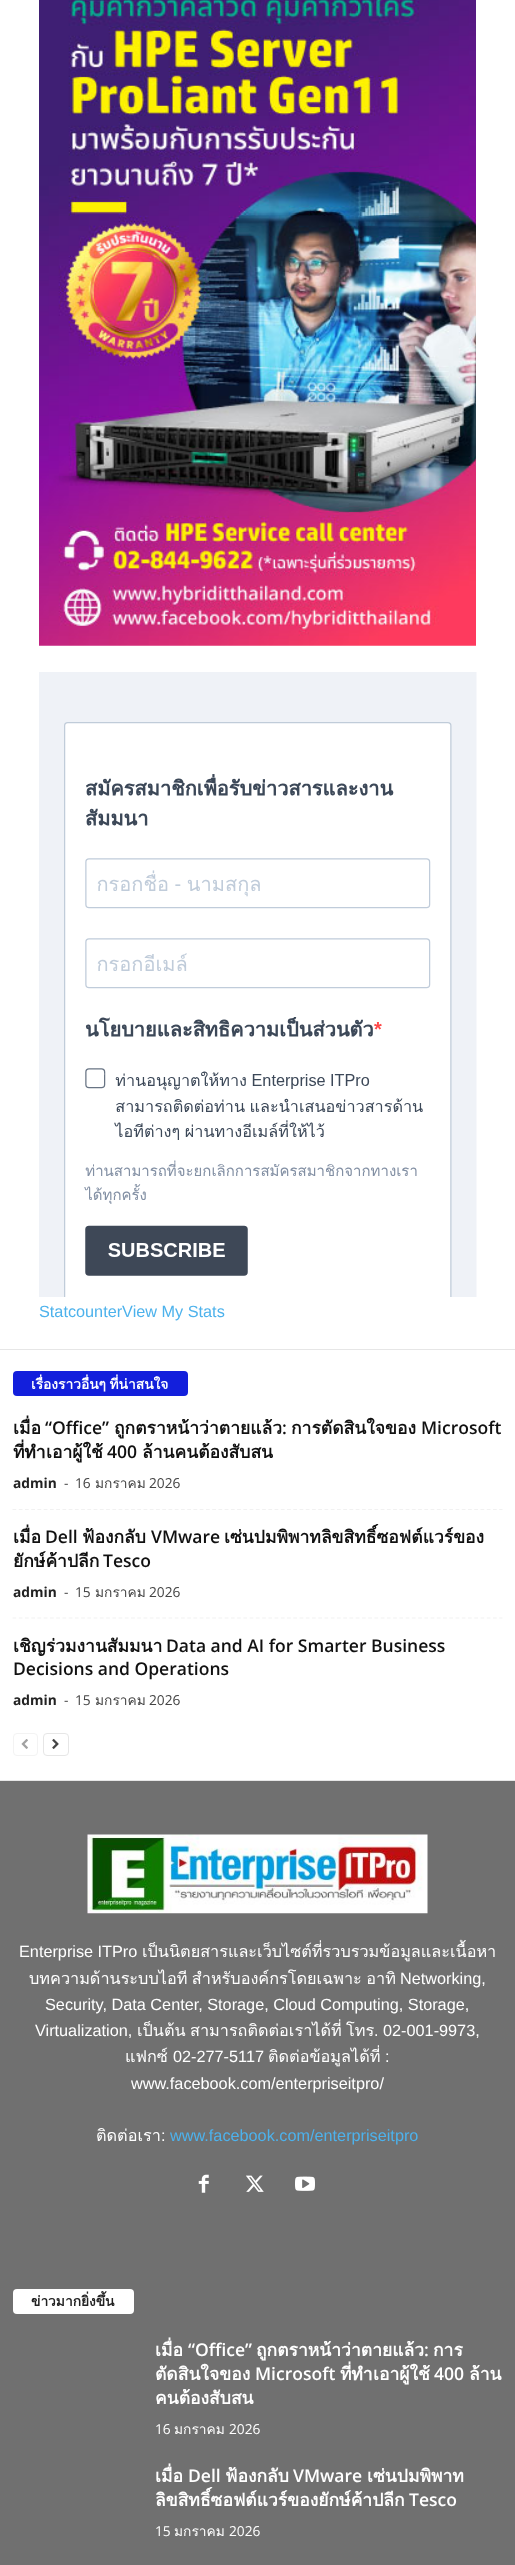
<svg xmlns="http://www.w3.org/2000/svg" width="515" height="2565">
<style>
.a{font:16.25px Liberation Sans;fill:#4db2ec}
.b{font:bold 13.75px Loma;fill:#fff}
.c{font:bold 17.5px Loma;fill:#111}
.d{font:600 17.5px Open Sans;fill:#111}
.e{font:bold 13.75px Open Sans;fill:#222}
.f{font:13.75px Open Sans;fill:#444}
.g{font:13.75px Loma;fill:#444}
.h{font:16.25px Liberation Sans;fill:#fff}
.i{font:16.25px Loma;fill:#fff}
.j{font:bold 13.75px Loma;fill:#222}
.k{font:bold 17.5px Loma;fill:#fff}
.l{font:600 17.5px Open Sans;fill:#fff}
.m{font:13.75px Open Sans;fill:#fff}
.n{font:13.75px Loma;fill:#fff}
</style>
<rect width="100%" height="100%" fill="#fff"/>
<path fill="#e6e6e6" d="M0 1780h515v1H0z"/>
<image href="1.png" x="39" y="0" width="437" height="646"/>
<image href="2.png" x="39" y="672" width="438" height="625"/>
<path fill="#e6e6e6" d="M0 1349h515v1H0z"/>
<rect fill="#131fdc" x="13" y="1371" width="175" height="25" rx="4"/>
<path fill="none" stroke="#f1f1f1" stroke-width="1.2" stroke-dasharray="3.75 2.49" d="M12.5 1509.5h490"/>
<path fill="none" stroke="#f1f1f1" stroke-width="1.2" stroke-dasharray="3.75 2.49" d="M12.5 1618h490"/>
<rect fill="none" stroke="#f3f3f3" x="13.5" y="1733.5" width="24" height="22" rx="3.5"/>
<image href="3.png" x="21" y="1739" width="7" height="10"/>
<rect fill="none" stroke="#e6e6e6" x="43.5" y="1733.5" width="25" height="22" rx="3.5"/>
<image href="4.png" x="52" y="1738" width="7" height="11"/>
<path fill="#707070" d="M0 1781h515v784H0z"/>
<image href="5.png" x="87" y="1834" width="341" height="80"/>
<image href="6.png" x="198" y="2174" width="11" height="19"/>
<image href="7.png" x="246" y="2175" width="18" height="17"/>
<image href="8.png" x="295" y="2176" width="20" height="15"/>
<rect fill="#fff" x="13" y="2289" width="121" height="25" rx="4"/>
<text class="a" x="39" y="1317">StatcounterView My Stats</text>
<text class="b" x="31" y="1389" word-spacing="-1">เรื่องราวอื่นๆ ที่น่าสนใจ</text>
<text class="c" x="13" y="1434">เมื่อ</text>
<text class="d" x="45" y="1434">“Office”</text>
<text class="c" x="114" y="1434">ถูกตราหน้าว่าตายแล้ว</text>
<text class="d" x="282" y="1434">:</text>
<text class="c" x="291" y="1434">การตัดสินใจของ</text>
<text class="d" x="421" y="1434">Microsoft</text>
<text class="c" x="13" y="1458">ที่ทำเอาผู้ใช้</text>
<text class="d" x="107" y="1458">400</text>
<text class="c" x="142" y="1458">ล้านคนต้องสับสน</text>
<text class="e" x="13" y="1488">admin</text>
<text class="f" x="64" y="1488">-</text>
<text class="f" x="75" y="1488">16</text>
<text class="g" x="95" y="1488">มกราคม</text>
<text class="f" x="149" y="1488">2026</text>
<text class="c" x="13" y="1543">เมื่อ</text>
<text class="d" x="45" y="1543">Dell</text>
<text class="c" x="82" y="1543">ฟ้องกลับ</text>
<text class="d" x="151" y="1543">VMware</text>
<text class="c" x="224" y="1543">เซ่นปมพิพาทลิขสิทธิ์ซอฟต์แวร์ของ</text>
<text class="c" x="13" y="1567">ยักษ์ค้าปลีก</text>
<text class="d" x="103" y="1567">Tesco</text>
<text class="e" x="13" y="1597">admin</text>
<text class="f" x="64" y="1597">-</text>
<text class="f" x="75" y="1597">15</text>
<text class="g" x="95" y="1597">มกราคม</text>
<text class="f" x="149" y="1597">2026</text>
<text class="c" x="13" y="1652">เชิญร่วมงานสัมมนา</text>
<text class="d" x="166" y="1652">Data and AI for Smarter Business</text>
<text class="d" x="13" y="1675">Decisions and Operations</text>
<text class="e" x="13" y="1705">admin</text>
<text class="f" x="64" y="1705">-</text>
<text class="f" x="75" y="1705">15</text>
<text class="g" x="95" y="1705">มกราคม</text>
<text class="f" x="149" y="1705">2026</text>
<text class="h" x="19" y="1957">Enterprise ITPro</text>
<text class="i" x="142" y="1957">เป็นนิตยสารและเว็บไซต์ที่รวบรวมข้อมูลและเนื้อหา</text>
<text class="i" x="29" y="1984" word-spacing="-1">บทความด้านระบบไอที สำหรับองค์กรโดยเฉพาะ อาทิ</text>
<text class="h" x="400" y="1984">Networking,</text>
<text class="h" x="45" y="2010">Security, Data Center, Storage, Cloud Computing, Storage,</text>
<text class="h" x="35" y="2036">Virtualization,</text>
<text class="i" x="137" y="2036">เป็นต้น</text>
<text class="i" x="190" y="2036">สามารถติดต่อเราได้ที่</text>
<text class="i" x="346" y="2036">โทร</text>
<text class="h" x="374" y="2036">. 02-001-9973,</text>
<text class="i" x="125" y="2062">แฟกซ์</text>
<text class="h" x="173" y="2062">02-277-5117</text>
<text class="i" x="268" y="2062">ติดต่อข้อมูลได้ที่</text>
<text class="h" x="385" y="2062">:</text>
<text class="h" x="131" y="2089">www.facebook.com/enterpriseitpro/</text>
<text class="i" x="96" y="2141">ติดต่อเรา</text>
<text class="h" x="161" y="2141">:</text>
<text class="a" x="170" y="2141">www.facebook.com/enterpriseitpro</text>
<text class="j" x="31" y="2306">ข่าวมากยิ่งขึ้น</text>
<text class="k" x="155" y="2356">เมื่อ</text>
<text class="l" x="188" y="2356">“Office”</text>
<text class="k" x="256" y="2356">ถูกตราหน้าว่าตายแล้ว</text>
<text class="l" x="424" y="2356">:</text>
<text class="k" x="433" y="2356">การ</text>
<text class="k" x="155" y="2380">ตัดสินใจของ</text>
<text class="l" x="255" y="2380">Microsoft</text>
<text class="k" x="340" y="2380">ที่ทำเอาผู้ใช้</text>
<text class="l" x="434" y="2380">400</text>
<text class="k" x="469" y="2380">ล้าน</text>
<text class="k" x="155" y="2404">คนต้องสับสน</text>
<text class="m" x="155" y="2434">16</text>
<text class="n" x="174" y="2434">มกราคม</text>
<text class="m" x="229" y="2434">2026</text>
<text class="k" x="155" y="2482">เมื่อ</text>
<text class="l" x="188" y="2482">Dell</text>
<text class="k" x="225" y="2482">ฟ้องกลับ</text>
<text class="l" x="293" y="2482">VMware</text>
<text class="k" x="367" y="2482">เซ่นปมพิพาท</text>
<text class="k" x="155" y="2506">ลิขสิทธิ์ซอฟต์แวร์ของยักษ์ค้าปลีก</text>
<text class="l" x="409" y="2506">Tesco</text>
<text class="m" x="155" y="2536">15</text>
<text class="n" x="174" y="2536">มกราคม</text>
<text class="m" x="229" y="2536">2026</text>
</svg>
